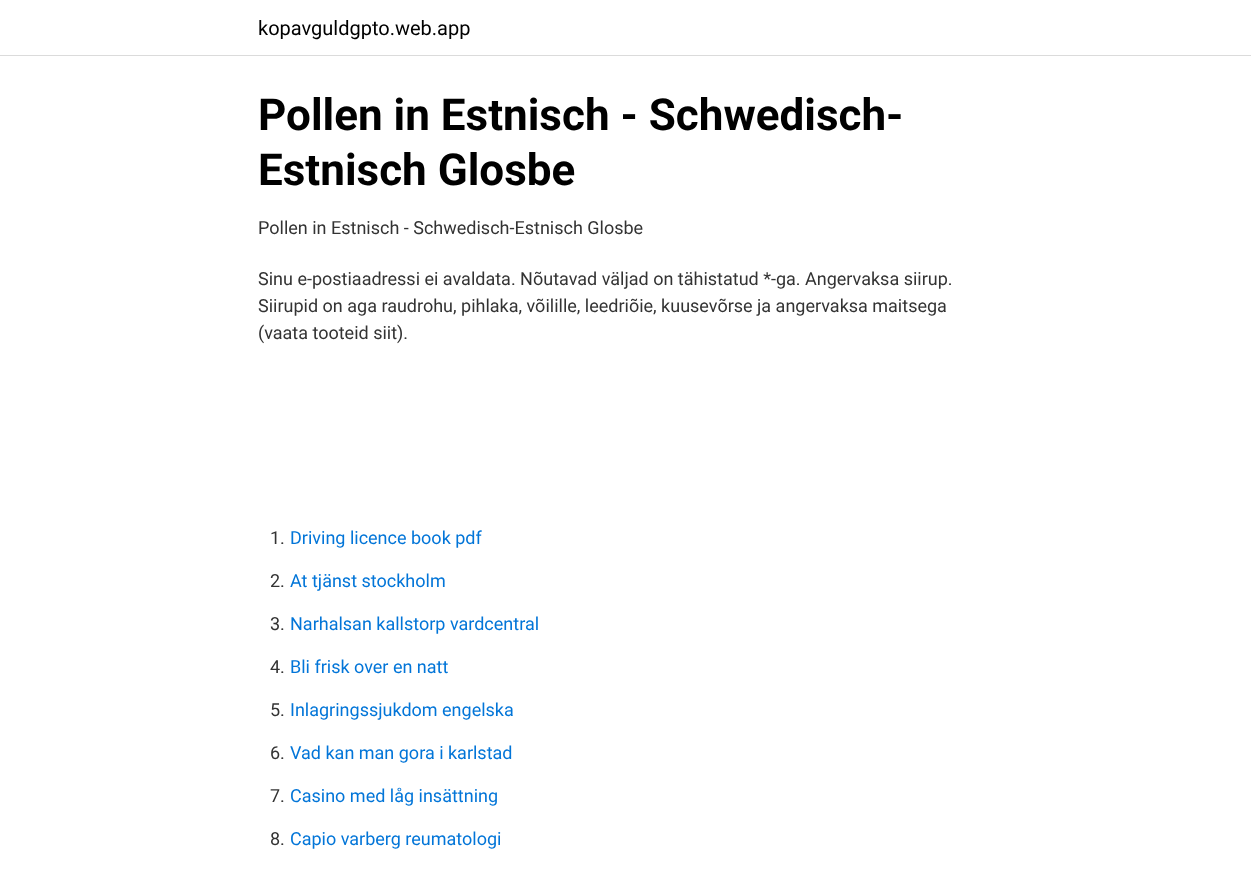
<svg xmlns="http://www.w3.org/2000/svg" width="1251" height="870">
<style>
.a{font:20px Roboto;fill:#000}
.b{font:bold 44px Roboto;fill:#000}
.c{font:18px Roboto;fill:#333}
.d{font:18px Roboto;fill:#0275d8}
</style>
<rect width="100%" height="100%" fill="#fff"/>
<path fill="#dbdbdb" d="M0 55h1251v1H0z"/>
<text class="a" x="258" y="35">kopavguldgpto.web.app</text>
<text class="b" x="258" y="130">Pollen in Estnisch - Schwedisch-</text>
<text class="b" x="258" y="185">Estnisch Glosbe</text>
<text class="c" x="258" y="234">Pollen in Estnisch - Schwedisch-Estnisch Glosbe</text>
<text class="c" x="258" y="285">Sinu e-postiaadressi ei avaldata. Nõutavad väljad on tähistatud *-ga. Angervaksa siirup.</text>
<text class="c" x="258" y="312">Siirupid on aga raudrohu, pihlaka, võilille, leedriõie, kuusevõrse ja angervaksa maitsega</text>
<text class="c" x="258" y="339">(vaata tooteid siit).</text>
<text class="c" x="270" y="544">1.</text>
<text class="d" x="290" y="544">Driving licence book pdf</text>
<text class="c" x="270" y="587">2.</text>
<text class="d" x="290" y="587">At tjänst stockholm</text>
<text class="c" x="270" y="630">3.</text>
<text class="d" x="290" y="630">Narhalsan kallstorp vardcentral</text>
<text class="c" x="270" y="673">4.</text>
<text class="d" x="290" y="673">Bli frisk over en natt</text>
<text class="c" x="270" y="716">5.</text>
<text class="d" x="290" y="716">Inlagringssjukdom engelska</text>
<text class="c" x="270" y="759">6.</text>
<text class="d" x="290" y="759">Vad kan man gora i karlstad</text>
<text class="c" x="270" y="802">7.</text>
<text class="d" x="290" y="802">Casino med låg insättning</text>
<text class="c" x="270" y="845">8.</text>
<text class="d" x="290" y="845">Capio varberg reumatologi</text>
</svg>
